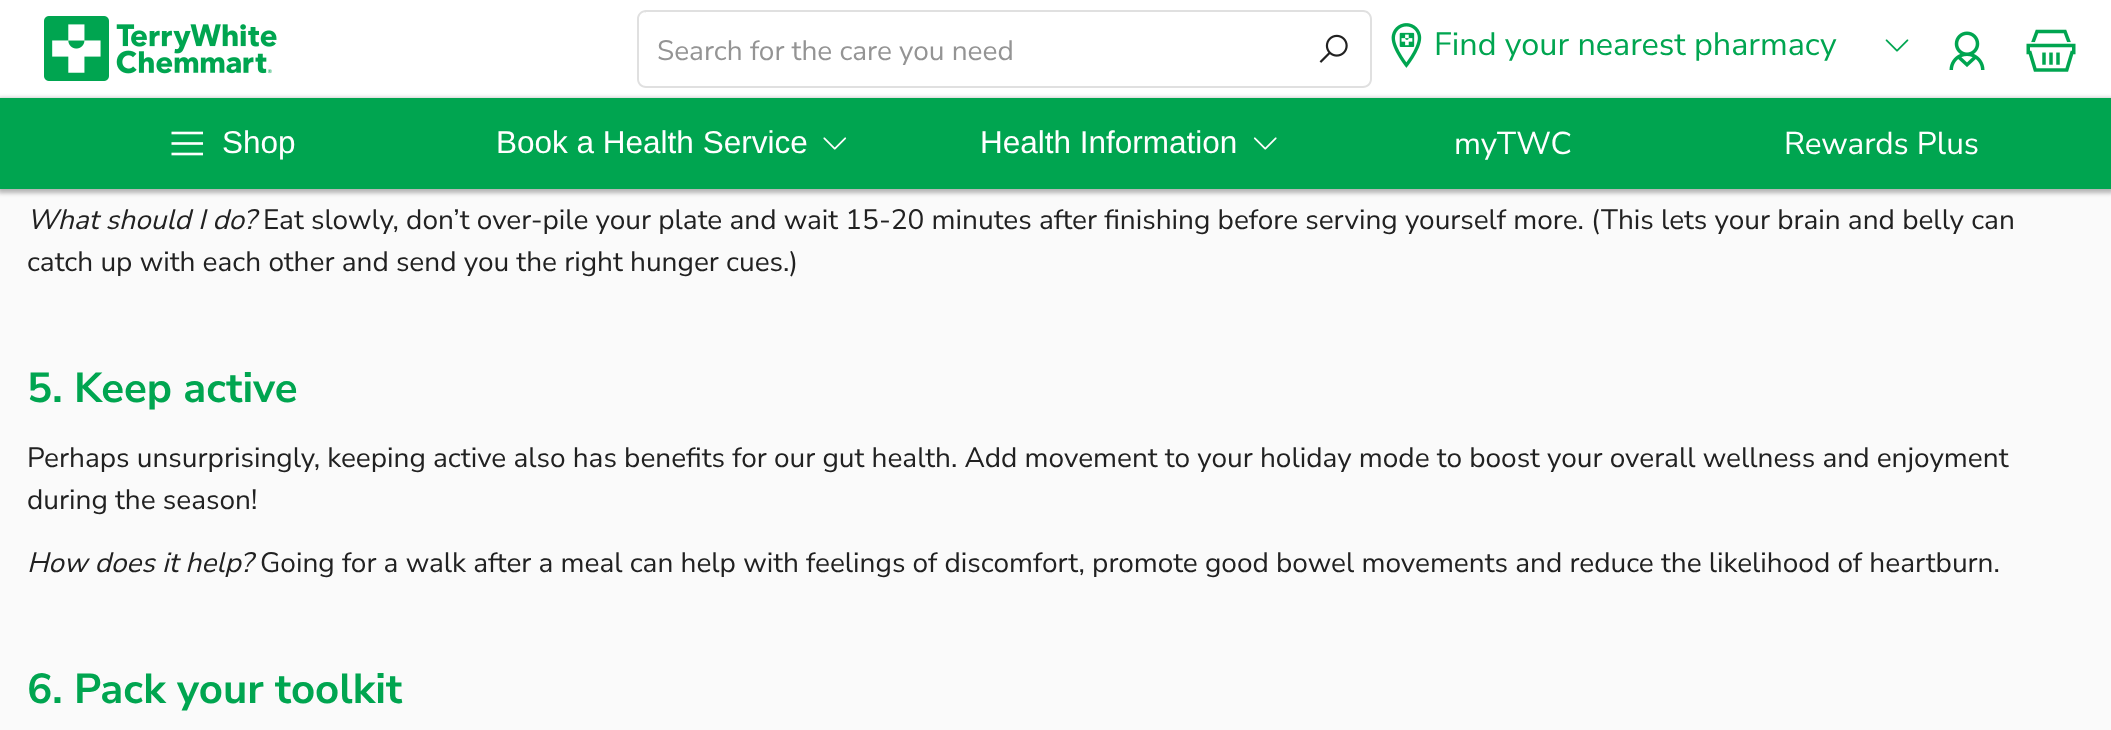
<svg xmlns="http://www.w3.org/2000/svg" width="2111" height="730">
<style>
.a{font:28px Nunito Sans;fill:#949494}
.b{font:32.4px Nunito Sans;fill:#00a550}
.c{font:31.5px Liberation Sans;fill:#fff}
.d{font:31.5px Nunito Sans;fill:#fff}
.e{font:italic 28px Nunito Sans;fill:#212121}
.f{font:28px Nunito Sans;fill:#212121}
.g{font:bold 42px Nunito Sans;fill:#00a550}
</style>
<rect width="100%" height="100%" fill="#fafafa"/>
<path fill="#fff" d="M0 0h2111v98H0z"/>
<image href="1.png" x="44" y="16" width="233" height="65"/>
<path fill="#e0e0e0" fill-rule="evenodd" d="M646 10v78c-5 0-9-4-9-9v-60c0-5 4-9 9-9zm0 2v74c-4 0-7-3-7-7v-60c0-4 3-7 7-7z"/>
<path fill="#e0e0e0" fill-rule="evenodd" d="M646 10h717c5 0 9 4 9 9v60c0 5-4 9-9 9h-717zm0 2h717c4 0 7 3 7 7v60c0 4-3 7-7 7h-717z"/>
<image href="2.png" x="1319" y="34" width="29" height="29"/>
<image href="3.png" x="1391" y="23" width="31" height="45"/>
<image href="4.png" x="1885" y="39" width="24" height="13"/>
<image href="5.png" x="1949" y="31" width="36" height="39"/>
<image href="6.png" x="2026" y="29" width="50" height="43"/>
<path fill="#00000047" filter="blur(2px)" d="M-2 98h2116v95H-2z"/>
<path fill="#00a550" d="M0 98h2111v91H0z"/>
<image href="7.png" x="171" y="131" width="32" height="25"/>
<image href="8.png" x="823" y="137" width="24" height="13"/>
<image href="9.png" x="1253" y="137" width="24" height="13"/>
<text class="a" x="657" y="60">Search for the care you need</text>
<text class="b" x="1434" y="55">Find your nearest pharmacy</text>
<text class="c" x="222" y="153">Shop</text>
<text class="c" x="496" y="153">Book a Health Service</text>
<text class="c" x="980" y="153">Health Information</text>
<text class="d" x="1454" y="154">myTWC</text>
<text class="d" x="1784" y="154">Rewards Plus</text>
<text class="e" x="27" y="229">What should I do?</text>
<text class="f" x="263" y="229">Eat slowly, don’t over-pile your plate and wait 15-20 minutes after finishing before serving yourself more. (This lets your brain and belly can</text>
<text class="f" x="27" y="271">catch up with each other and send you the right hunger cues.)</text>
<text class="g" x="27" y="402">5. Keep active</text>
<text class="f" x="27" y="467">Perhaps unsurprisingly, keeping active also has benefits for our gut health. Add movement to your holiday mode to boost your overall wellness and enjoyment</text>
<text class="f" x="27" y="509">during the season!</text>
<text class="e" x="27" y="572">How does it help?</text>
<text class="f" x="260" y="572">Going for a walk after a meal can help with feelings of discomfort, promote good bowel movements and reduce the likelihood of heartburn.</text>
<text class="g" x="27" y="703">6. Pack your toolkit</text>
</svg>
